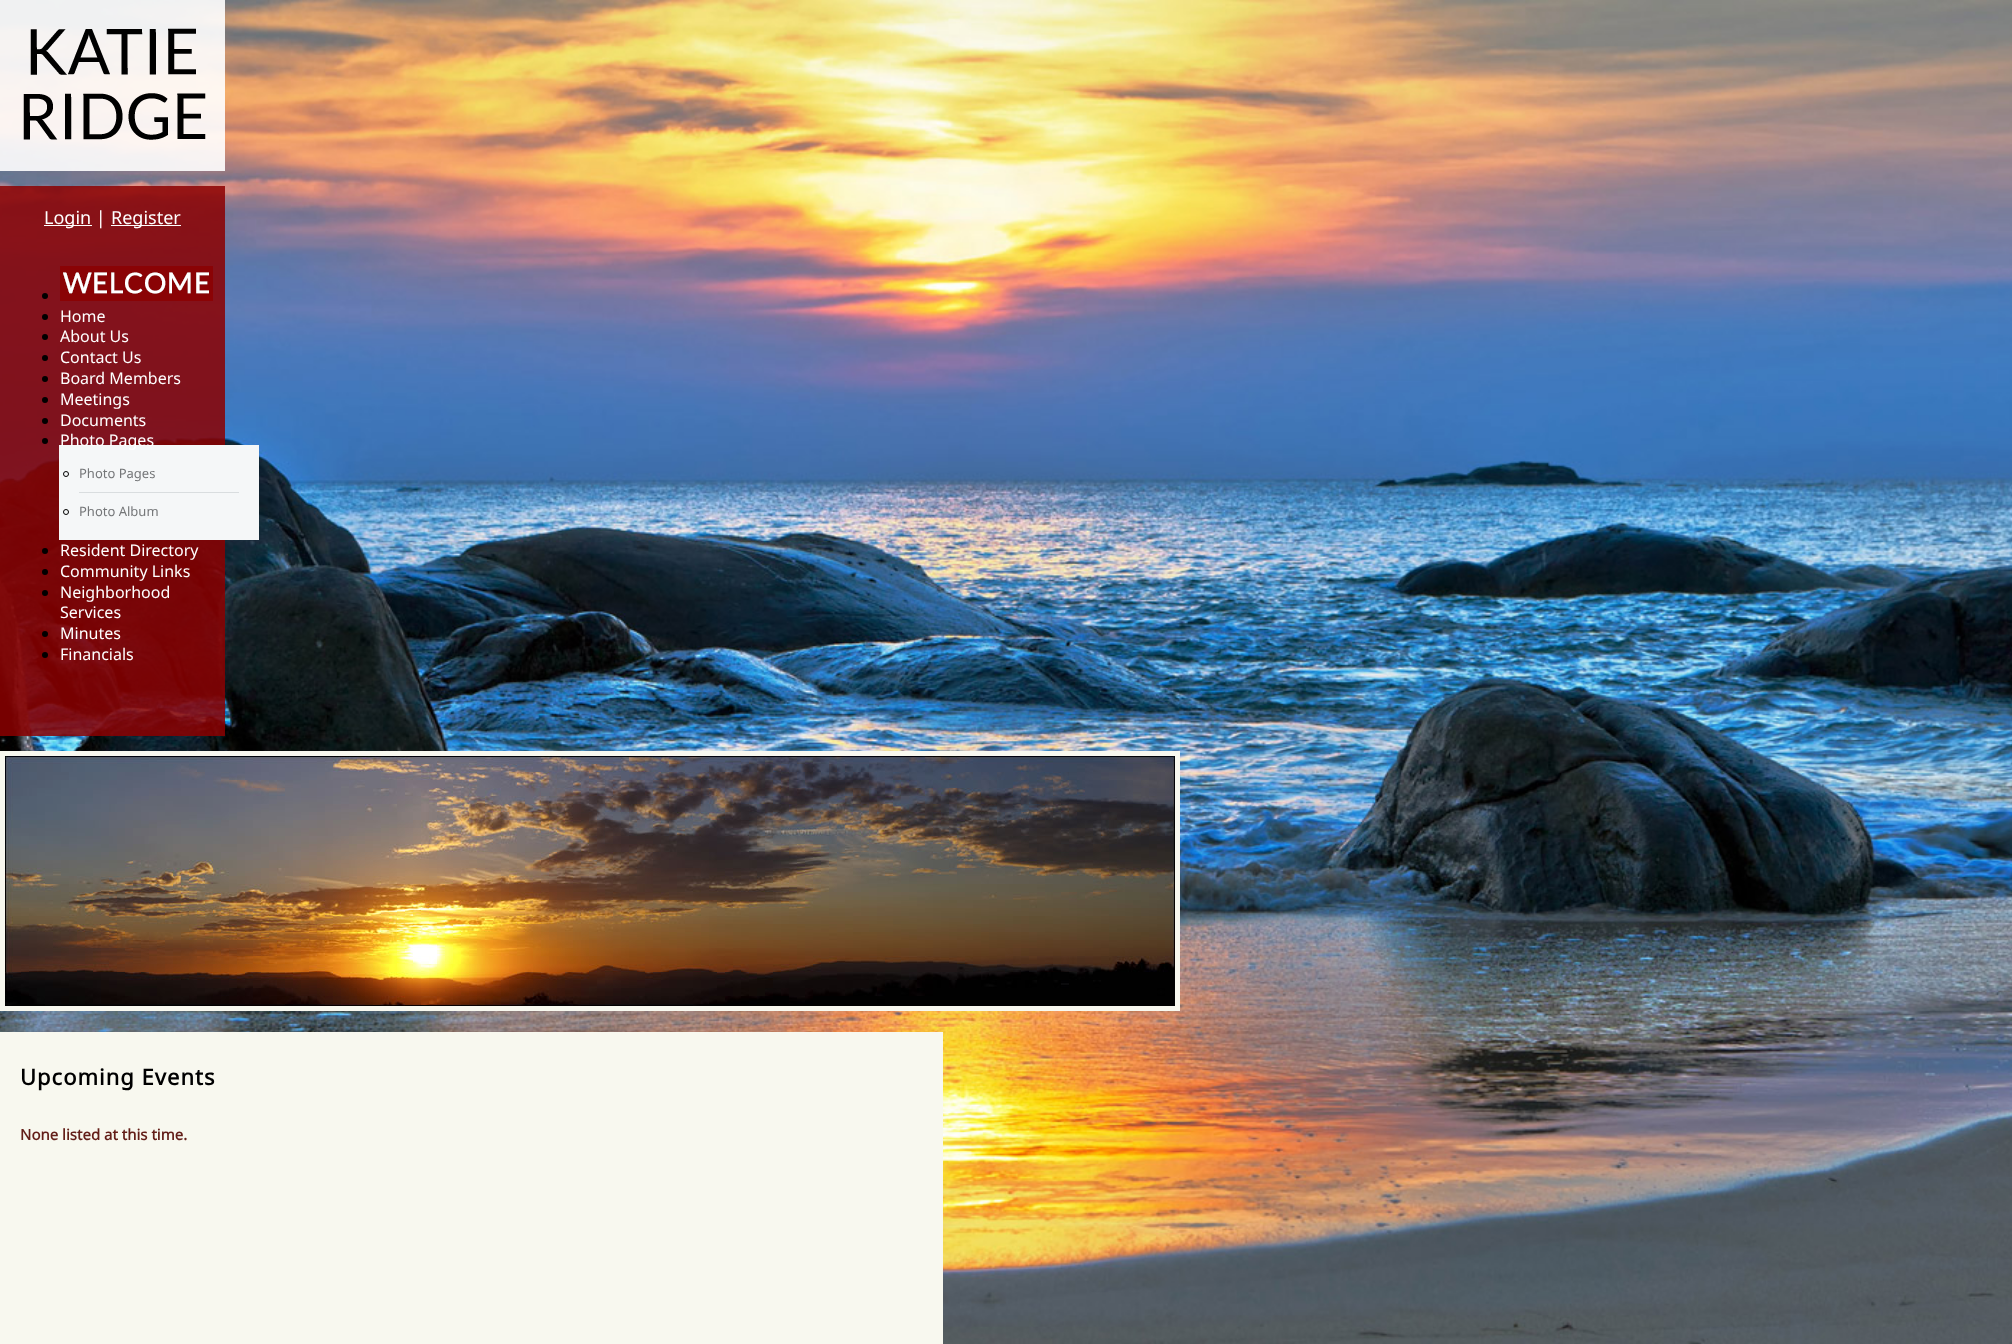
<svg xmlns="http://www.w3.org/2000/svg" width="2012" height="1344">
<style>
.a{font:18px Noto Sans;fill:#fff}
.b{font:16px Noto Sans;fill:#fff}
.c{font:13px Noto Sans;fill:#747678}
.d{font:bold 22px Noto Sans;letter-spacing:1px;fill:#000}
.e{font:bold 15px Noto Sans;fill:#631e18}
</style>
<rect width="100%" height="100%" fill="#fff"/>
<image href="1.png" x="0" y="0" width="2012" height="1344"/>
<path fill="#ffffffe6" d="M0 0h225v171H0z"/>
<image href="2.png" x="23" y="28" width="183" height="112"/>
<path fill="#8c0000d9" d="M0 186h225v550H0z"/>
<path fill="#fff" d="M44 225h48v1H44z"/>
<path fill="#fff" d="M111 225h70v1H111z"/>
<circle fill="#000" cx="45" cy="296" r="3"/>
<image href="3.png" x="60" y="266" width="153" height="35"/>
<circle fill="#000" cx="45" cy="317" r="3"/>
<circle fill="#000" cx="45" cy="337" r="3"/>
<circle fill="#000" cx="45" cy="358" r="3"/>
<circle fill="#000" cx="45" cy="379" r="3"/>
<circle fill="#000" cx="45" cy="400" r="3"/>
<circle fill="#000" cx="45" cy="421" r="3"/>
<circle fill="#000" cx="45" cy="441" r="3"/>
<path fill="#f5f7f8" d="M59 445h200v95H59z"/>
<path fill="#d9dddf" d="M79 492h160v1H79z"/>
<circle fill="none" stroke="#000" cx="66" cy="474" r="2.5"/>
<circle fill="none" stroke="#000" cx="66" cy="512" r="2.5"/>
<circle fill="#000" cx="45" cy="551" r="3"/>
<circle fill="#000" cx="45" cy="572" r="3"/>
<circle fill="#000" cx="45" cy="593" r="3"/>
<circle fill="#000" cx="45" cy="634" r="3"/>
<circle fill="#000" cx="45" cy="655" r="3"/>
<path fill="none" stroke="#f8f8ef" stroke-width="5" d="M2.5 753.5h1175v255H2.5z"/>
<image href="4.png" x="5" y="756" width="1170" height="250"/>
<path fill="#f8f8ef" d="M0 1032h943v312H0z"/>
<text class="a" x="44" y="224">Login |</text>
<text class="a" x="111" y="224">Register</text>
<text class="b" x="60" y="322">Home</text>
<text class="b" x="60" y="342">About Us</text>
<text class="b" x="60" y="363">Contact Us</text>
<text class="b" x="60" y="384">Board Members</text>
<text class="b" x="60" y="405">Meetings</text>
<text class="b" x="60" y="426">Documents</text>
<text class="b" x="60" y="446">Photo Pages</text>
<text class="c" x="79" y="478">Photo Pages</text>
<text class="c" x="79" y="516">Photo Album</text>
<text class="b" x="60" y="556">Resident Directory</text>
<text class="b" x="60" y="577">Community Links</text>
<text class="b" x="60" y="598">Neighborhood</text>
<text class="b" x="60" y="618">Services</text>
<text class="b" x="60" y="639">Minutes</text>
<text class="b" x="60" y="660">Financials</text>
<text class="d" x="20" y="1085">Upcoming Events</text>
<text class="e" x="20" y="1140">None listed at this time.</text>
</svg>
